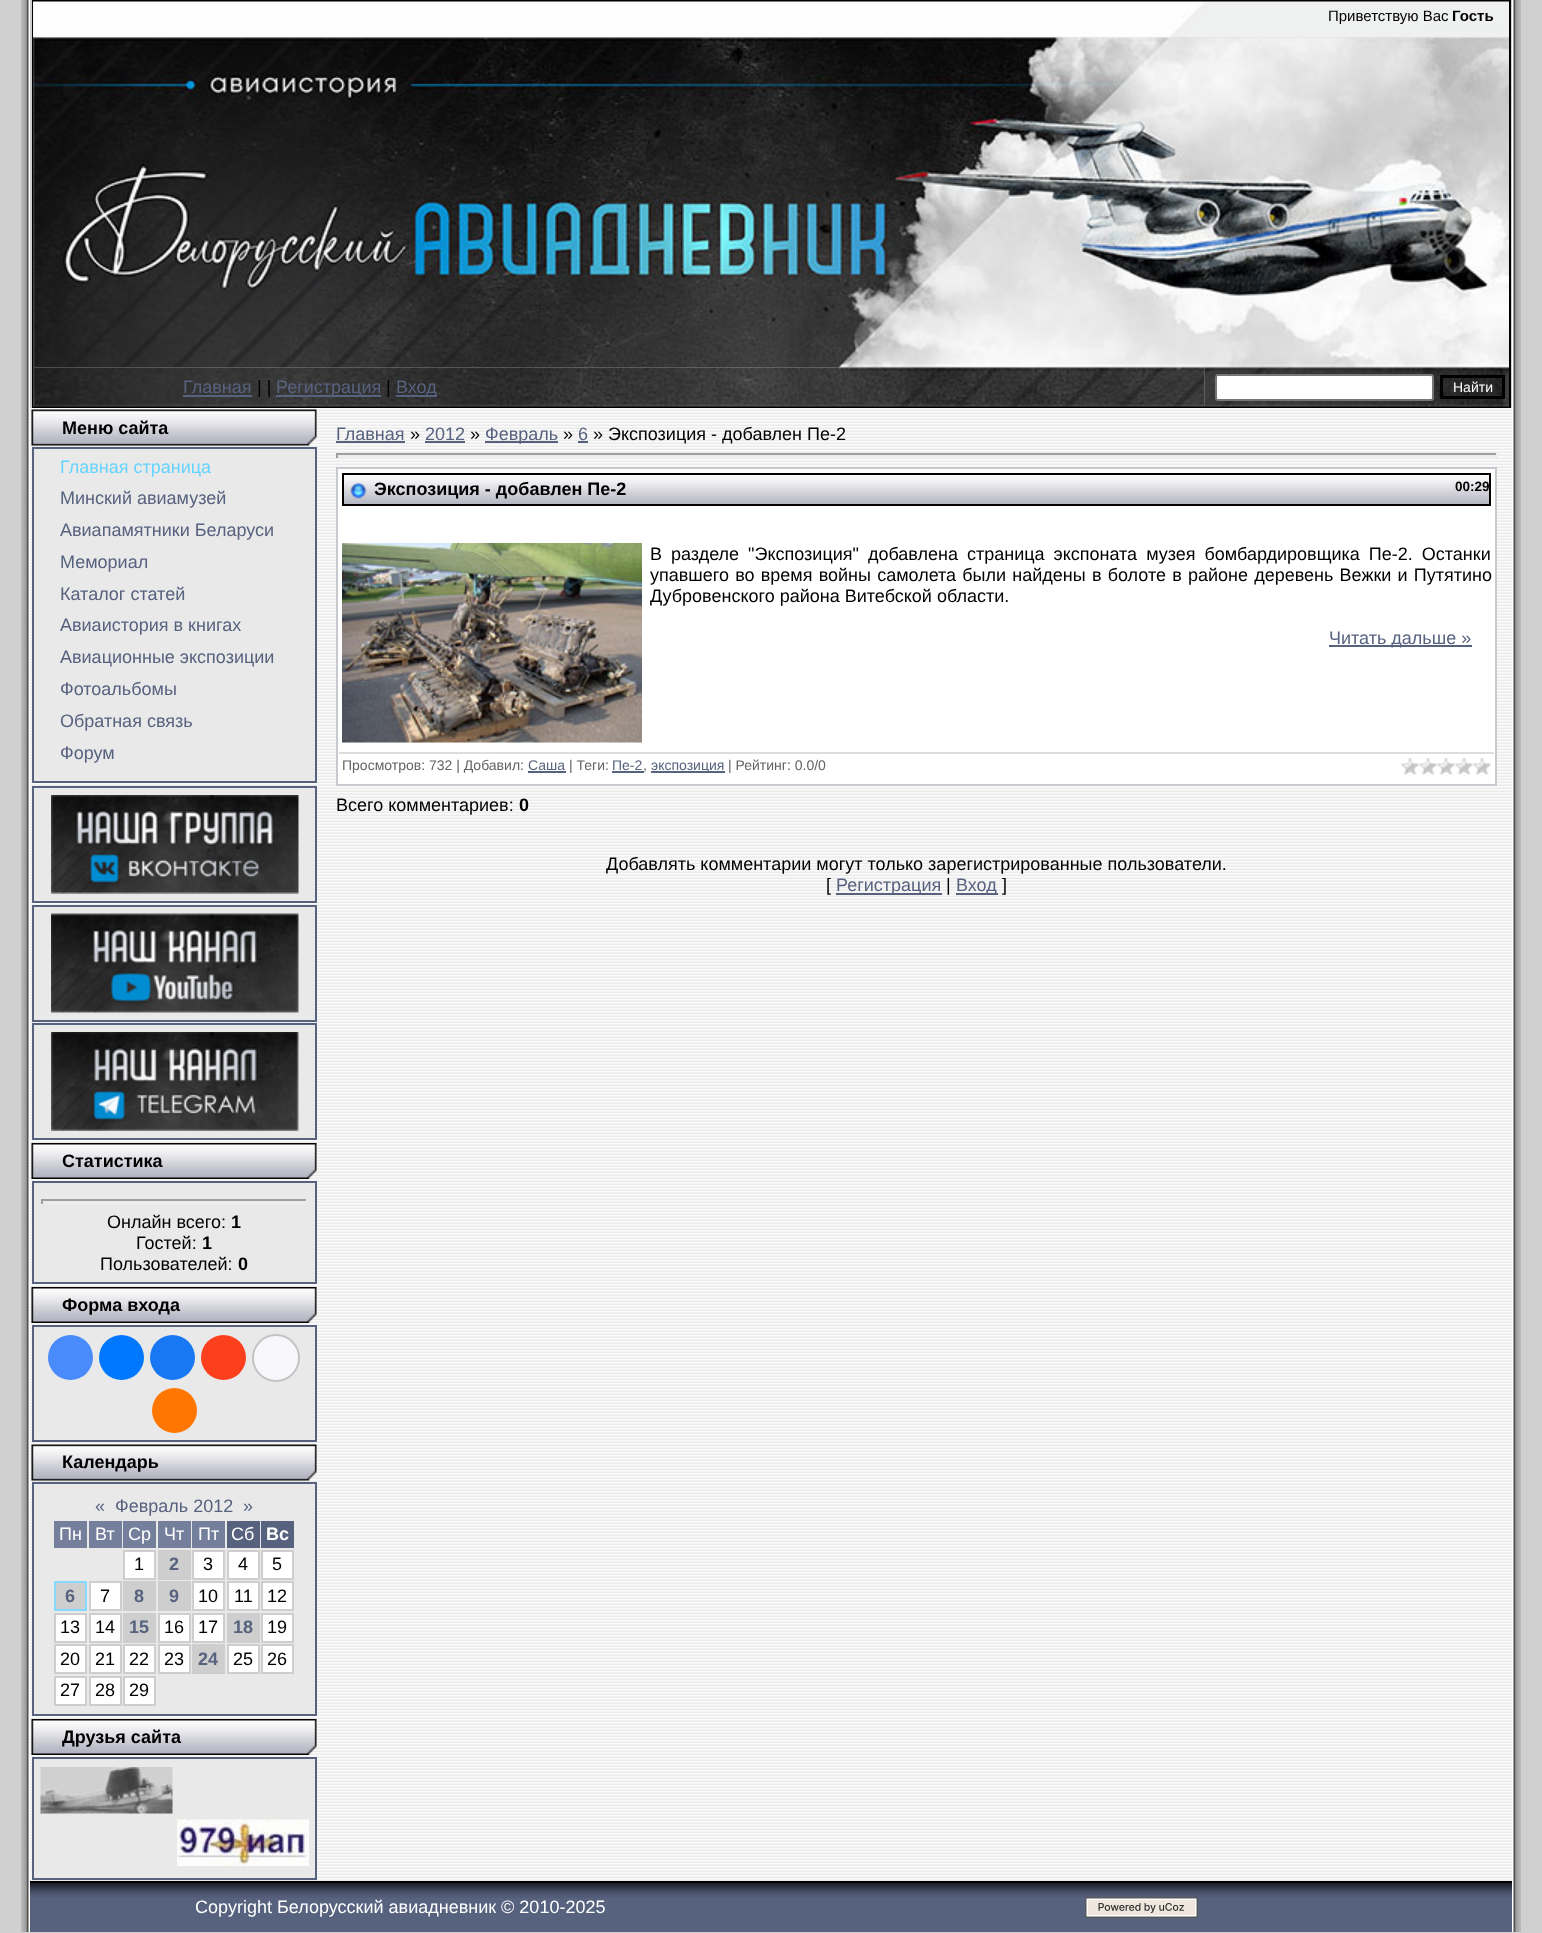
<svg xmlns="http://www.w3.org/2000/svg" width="1542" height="1933">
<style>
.a{font:15px Liberation Sans;fill:#000}
.b{font:bold 15px Liberation Sans;fill:#000}
.c{font:18px Liberation Sans;fill:#57627f}
.d{font:18px Liberation Sans;fill:#000}
.e{font:14px Liberation Sans;fill:#fff}
.f{font:bold 18px Liberation Sans;fill:#000}
.g{font:18px Liberation Sans;fill:#66d4ff}
.h{font:18px Liberation Sans;fill:#fff}
.i{font:bold 18px Liberation Sans;fill:#fff}
.j{font:bold 18px Liberation Sans;fill:#57627f}
.k{font:bold 13.5px Liberation Sans;fill:#000}
.l{font:14px Liberation Sans;fill:#636363}
.m{font:14px Liberation Sans;fill:#57627f}
</style>
<rect width="100%" height="100%" fill="#d0d0d0"/>
<image href="1.png" x="21" y="0" width="9" height="1932"/>
<path fill="none" stroke="#000" stroke-width="2" d="M33 1h1477v406H33z"/>
<image href="2.png" x="33" y="1" width="1476" height="37"/>
<image href="3.png" x="33" y="37" width="1476" height="331"/>
<image href="4.png" x="33" y="367" width="1172" height="40"/>
<path fill="#57627f" d="M183 395h69v2H183z"/>
<path fill="#57627f" d="M276 395h105v2H276z"/>
<path fill="#57627f" d="M396 395h41v2H396z"/>
<image href="5.png" x="1204" y="367" width="305" height="40"/>
<rect fill="#fff" stroke="#767676" stroke-width="2" x="1216" y="375" width="217" height="25" rx="2"/>
<image href="6.png" x="1443" y="378" width="59" height="18"/>
<path fill="none" stroke="#000" stroke-width="3" d="M1441.5 376.5h62v21H1441.5z"/>
<image href="7.png" x="30" y="408" width="1482" height="1473"/>
<image href="8.png" x="31" y="409" width="286" height="37"/>
<path fill="#e9e9e9" d="M34 450h281v331H34z"/>
<path fill="none" stroke="#57627f" stroke-width="2" d="M33 448h283v334H33z"/>
<path fill="#e9e9e9" d="M34 789h281v112H34z"/>
<path fill="none" stroke="#57627f" stroke-width="2" d="M33 787h283v115H33z"/>
<image href="9.png" x="51" y="795" width="248" height="99"/>
<path fill="#e9e9e9" d="M34 907h281v112H34z"/>
<path fill="none" stroke="#57627f" stroke-width="2" d="M33 906h283v115H33z"/>
<image href="10.png" x="51" y="913" width="248" height="100"/>
<path fill="#e9e9e9" d="M34 1026h281v112H34z"/>
<path fill="none" stroke="#57627f" stroke-width="2" d="M33 1024h283v115H33z"/>
<image href="11.png" x="51" y="1032" width="248" height="99"/>
<image href="12.png" x="31" y="1143" width="286" height="36"/>
<path fill="#e9e9e9" stroke="#57627f" stroke-width="2" d="M33 1182h283v101H33z"/>
<path fill="#9f9f9f" d="M41 1199h267v2H41z"/>
<path fill="#eee" d="M306 1199h2v5H306z"/>
<path fill="#eee" d="M41 1202h267v2H41z"/>
<path fill="#9f9f9f" d="M41 1199h2v5H41z"/>
<image href="12.png" x="31" y="1287" width="286" height="36"/>
<path fill="#e9e9e9" d="M34 1327h281v112H34z"/>
<path fill="none" stroke="#57627f" stroke-width="2" d="M33 1326h283v115H33z"/>
<circle fill="#498bfa" cx="70.5" cy="1357.5" r="22.5"/>
<circle fill="#07f" cx="121.5" cy="1357.5" r="22.5"/>
<circle fill="#1877f2" cx="172.5" cy="1357.5" r="22.5"/>
<circle fill="#fc3f1d" cx="223.5" cy="1357.5" r="22.5"/>
<circle fill="#f8f8fc" stroke="#c4c4c4" stroke-width="2" cx="276" cy="1358" r="23"/>
<circle fill="#f70" cx="174.5" cy="1410.5" r="22.5"/>
<image href="8.png" x="31" y="1444" width="286" height="37"/>
<path fill="#e9e9e9" d="M34 1485h281v229H34z"/>
<path fill="none" stroke="#57627f" stroke-width="2" d="M33 1483h283v232H33z"/>
<path fill="#747f9c" d="M54 1521h33v27H54z"/>
<path fill="#747f9c" d="M89 1521h33v27H89z"/>
<path fill="#747f9c" d="M123 1521h33v27H123z"/>
<path fill="#747f9c" d="M158 1521h33v27H158z"/>
<path fill="#747f9c" d="M192 1521h33v27H192z"/>
<path fill="#57627f" d="M227 1521h33v27H227z"/>
<path fill="#57627f" d="M261 1521h33v27H261z"/>
<path fill="#fff" stroke="#cecece" stroke-width="2" d="M124 1551h31v28H124z"/>
<path fill="#cecece" d="M158 1550h33v30H158z"/>
<path fill="#fff" stroke="#cecece" stroke-width="2" d="M193 1551h31v28H193z"/>
<path fill="#fff" stroke="#cecece" stroke-width="2" d="M228 1551h31v28H228z"/>
<path fill="#fff" stroke="#cecece" stroke-width="2" d="M262 1551h31v28H262z"/>
<path fill="#cecece" stroke="#84dbff" stroke-width="2" d="M55 1582h31v28H55z"/>
<path fill="#fff" stroke="#cecece" stroke-width="2" d="M90 1582h31v28H90z"/>
<path fill="#cecece" d="M123 1581h33v30H123z"/>
<path fill="#cecece" d="M158 1581h33v30H158z"/>
<path fill="#fff" stroke="#cecece" stroke-width="2" d="M193 1582h31v28H193z"/>
<path fill="#fff" stroke="#cecece" stroke-width="2" d="M228 1582h31v28H228z"/>
<path fill="#fff" stroke="#cecece" stroke-width="2" d="M262 1582h31v28H262z"/>
<path fill="#fff" stroke="#cecece" stroke-width="2" d="M55 1614h31v28H55z"/>
<path fill="#fff" stroke="#cecece" stroke-width="2" d="M90 1614h31v28H90z"/>
<path fill="#cecece" d="M123 1613h33v30H123z"/>
<path fill="#fff" stroke="#cecece" stroke-width="2" d="M159 1614h31v28H159z"/>
<path fill="#fff" stroke="#cecece" stroke-width="2" d="M193 1614h31v28H193z"/>
<path fill="#cecece" d="M227 1613h33v30H227z"/>
<path fill="#fff" stroke="#cecece" stroke-width="2" d="M262 1614h31v28H262z"/>
<path fill="#fff" stroke="#cecece" stroke-width="2" d="M55 1645h31v28H55z"/>
<path fill="#fff" stroke="#cecece" stroke-width="2" d="M90 1645h31v28H90z"/>
<path fill="#fff" stroke="#cecece" stroke-width="2" d="M124 1645h31v28H124z"/>
<path fill="#fff" stroke="#cecece" stroke-width="2" d="M159 1645h31v28H159z"/>
<path fill="#cecece" d="M192 1644h33v30H192z"/>
<path fill="#fff" stroke="#cecece" stroke-width="2" d="M228 1645h31v28H228z"/>
<path fill="#fff" stroke="#cecece" stroke-width="2" d="M262 1645h31v28H262z"/>
<path fill="#fff" stroke="#cecece" stroke-width="2" d="M55 1677h31v28H55z"/>
<path fill="#fff" stroke="#cecece" stroke-width="2" d="M90 1677h31v28H90z"/>
<path fill="#fff" stroke="#cecece" stroke-width="2" d="M124 1677h31v28H124z"/>
<image href="12.png" x="31" y="1719" width="286" height="36"/>
<path fill="#e9e9e9" d="M34 1759h281v118H34z"/>
<path fill="none" stroke="#57627f" stroke-width="2" d="M33 1758h283v121H33z"/>
<image href="13.png" x="40" y="1767" width="133" height="47"/>
<image href="14.png" x="177" y="1819" width="132" height="47"/>
<path fill="#57627f" d="M336 441h69v2H336z"/>
<path fill="#57627f" d="M425 441h40v2H425z"/>
<path fill="#57627f" d="M485 441h73v2H485z"/>
<path fill="#57627f" d="M578 441h10v2H578z"/>
<path fill="#9f9f9f" d="M336 453h1161v2H336z"/>
<path fill="#eee" d="M1496 453h2v5H1496z"/>
<path fill="#eee" d="M336 456h1161v2H336z"/>
<path fill="#9f9f9f" d="M336 453h2v5H336z"/>
<path fill="#fff" stroke="#c7c9ce" stroke-width="2" d="M337 468h1159v317H337z"/>
<image href="15.png" x="344" y="475" width="1145" height="29"/>
<path fill="none" stroke="#060000" stroke-width="2" d="M343 474h1147v31H343z"/>
<image href="16.png" x="342" y="543" width="300" height="200"/>
<path fill="#57627f" d="M1329 645h143v2H1329z"/>
<path fill="#ddd" d="M339 752h1155v2H339z"/>
<path fill="#57627f" d="M528 771h38v2H528z"/>
<path fill="#57627f" d="M612 771h32v2H612z"/>
<path fill="#57627f" d="M651 771h74v2H651z"/>
<image href="17.png" x="1401" y="757" width="90" height="19"/>
<path fill="#57627f" d="M836 893h106v2H836z"/>
<path fill="#57627f" d="M956 893h42v2H956z"/>
<path fill="#57627f" d="M30 1898h1482v34H30z"/>
<image href="18.png" x="30" y="1883" width="1482" height="15"/>
<path fill="#000" d="M30 1881h1482v2H30z"/>
<image href="19.png" x="1085" y="1897" width="113" height="21"/>
<image href="20.png" x="1512" y="0" width="9" height="1932"/>
<text class="a" x="1328" y="21">Приветствую Вас</text>
<text class="b" x="1452" y="21">Гость</text>
<text class="c" x="183" y="393">Главная</text>
<text class="d" x="257" y="393">| |</text>
<text class="c" x="276" y="393">Регистрация</text>
<text class="d" x="386" y="393">|</text>
<text class="c" x="396" y="393">Вход</text>
<text class="e" x="1453" y="392">Найти</text>
<text class="f" x="62" y="434">Меню сайта</text>
<text class="g" x="60" y="473">Главная страница</text>
<text class="c" x="60" y="504">Минский авиамузей</text>
<text class="c" x="60" y="536">Авиапамятники Беларуси</text>
<text class="c" x="60" y="568">Мемориал</text>
<text class="c" x="60" y="600">Каталог статей</text>
<text class="c" x="60" y="631">Авиаистория в книгах</text>
<text class="c" x="60" y="663">Авиационные экспозиции</text>
<text class="c" x="60" y="695">Фотоальбомы</text>
<text class="c" x="60" y="727">Обратная связь</text>
<text class="c" x="60" y="759">Форум</text>
<text class="f" x="62" y="1167">Статистика</text>
<text class="d" x="107" y="1228">Онлайн всего:</text>
<text class="f" x="231" y="1228">1</text>
<text class="d" x="136" y="1249">Гостей:</text>
<text class="f" x="202" y="1249">1</text>
<text class="d" x="100" y="1270">Пользователей:</text>
<text class="f" x="238" y="1270">0</text>
<text class="f" x="62" y="1311">Форма входа</text>
<text class="f" x="62" y="1468">Календарь</text>
<text class="c" x="95" y="1512">«</text>
<text class="c" x="115" y="1512">Февраль 2012</text>
<text class="c" x="243" y="1512">»</text>
<text class="h" x="59" y="1540">Пн</text>
<text class="h" x="95" y="1540">Вт</text>
<text class="h" x="128" y="1540">Ср</text>
<text class="h" x="164" y="1540">Чт</text>
<text class="h" x="198" y="1540">Пт</text>
<text class="h" x="231" y="1540">Сб</text>
<text class="i" x="266" y="1540">Вс</text>
<text class="d" x="134" y="1570">1</text>
<text class="j" x="169" y="1570">2</text>
<text class="d" x="203" y="1570">3</text>
<text class="d" x="238" y="1570">4</text>
<text class="d" x="272" y="1570">5</text>
<text class="j" x="65" y="1602">6</text>
<text class="d" x="100" y="1602">7</text>
<text class="j" x="134" y="1602">8</text>
<text class="j" x="169" y="1602">9</text>
<text class="d" x="198" y="1602">10</text>
<text class="d" x="234" y="1602">11</text>
<text class="d" x="267" y="1602">12</text>
<text class="d" x="60" y="1633">13</text>
<text class="d" x="95" y="1633">14</text>
<text class="j" x="129" y="1633">15</text>
<text class="d" x="164" y="1633">16</text>
<text class="d" x="198" y="1633">17</text>
<text class="j" x="233" y="1633">18</text>
<text class="d" x="267" y="1633">19</text>
<text class="d" x="60" y="1665">20</text>
<text class="d" x="95" y="1665">21</text>
<text class="d" x="129" y="1665">22</text>
<text class="d" x="164" y="1665">23</text>
<text class="j" x="198" y="1665">24</text>
<text class="d" x="233" y="1665">25</text>
<text class="d" x="267" y="1665">26</text>
<text class="d" x="60" y="1696">27</text>
<text class="d" x="95" y="1696">28</text>
<text class="d" x="129" y="1696">29</text>
<text class="f" x="62" y="1743">Друзья сайта</text>
<text class="c" x="336" y="440">Главная</text>
<text class="d" x="410" y="440">»</text>
<text class="c" x="425" y="440">2012</text>
<text class="d" x="470" y="440">»</text>
<text class="c" x="485" y="440">Февраль</text>
<text class="d" x="563" y="440">»</text>
<text class="c" x="578" y="440">6</text>
<text class="d" x="593" y="440">» Экспозиция - добавлен Пе-2</text>
<text class="f" x="374" y="495">Экспозиция - добавлен Пе-2</text>
<text class="k" x="1455" y="491">00:29</text>
<text class="d" x="650" y="560" word-spacing="4">В разделе "Экспозиция" добавлена страница экспоната музея бомбардировщика Пе-2. Останки</text>
<text class="d" x="650" y="581" word-spacing="1.2">упавшего во время войны самолета были найдены в болоте в районе деревень Вежки и Путятино</text>
<text class="d" x="650" y="602">Дубровенского района Витебской области.</text>
<text class="c" x="1329" y="644">Читать дальше »</text>
<text class="l" x="342" y="770">Просмотров: 732 | Добавил:</text>
<text class="m" x="528" y="770">Саша</text>
<text class="l" x="569" y="770">| Теги:</text>
<text class="m" x="612" y="770">Пе-2</text>
<text class="l" x="643" y="770">,</text>
<text class="m" x="651" y="770">экспозиция</text>
<text class="l" x="728" y="770">| Рейтинг: 0.0/0</text>
<text class="d" x="336" y="811">Всего комментариев:</text>
<text class="f" x="519" y="811">0</text>
<text class="d" x="606" y="870">Добавлять комментарии могут только зарегистрированные пользователи.</text>
<text class="d" x="826" y="891">[</text>
<text class="c" x="836" y="891">Регистрация</text>
<text class="d" x="946" y="891">|</text>
<text class="c" x="956" y="891">Вход</text>
<text class="d" x="1002" y="891">]</text>
<text class="h" x="195" y="1913">Copyright Белорусский авиадневник © 2010-2025</text>
</svg>
